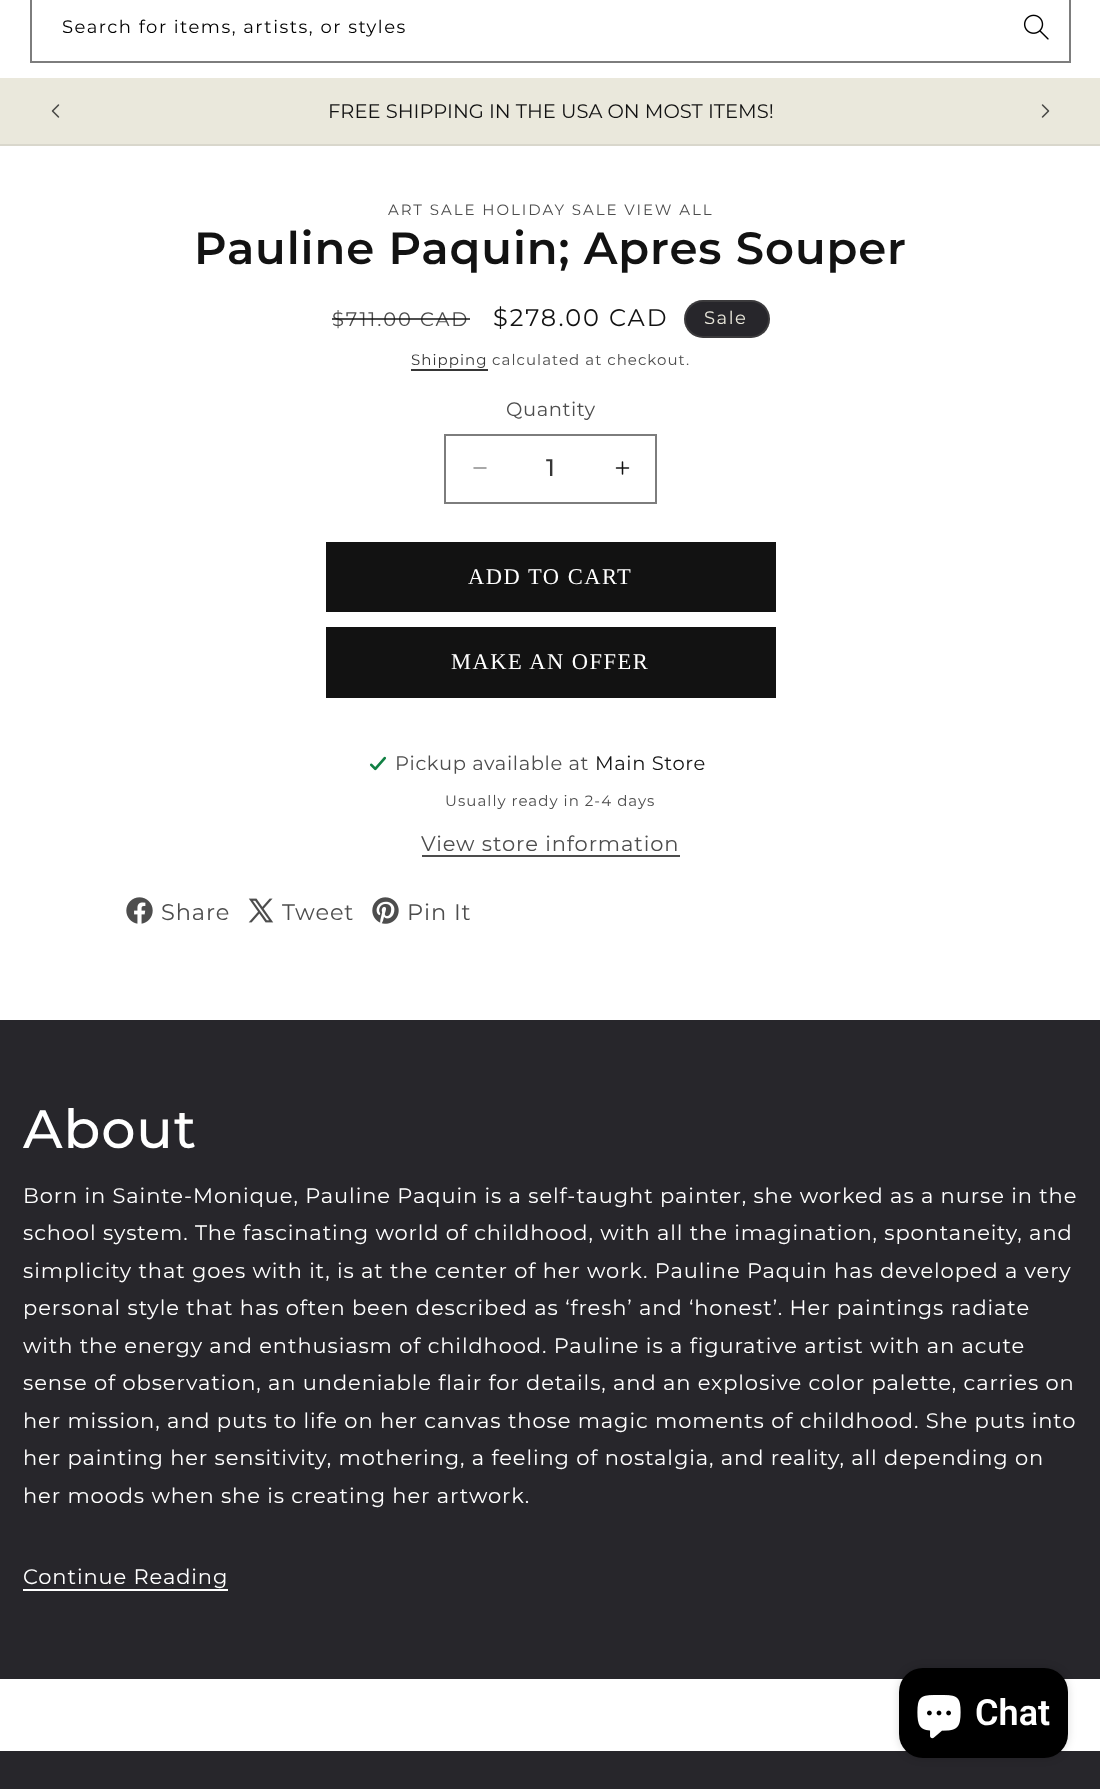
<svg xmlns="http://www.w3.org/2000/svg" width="1100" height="1789">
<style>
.a{font:18px Montserrat;letter-spacing:1.5px;fill:#000}
.b{font:19.5px Montserrat;fill:#121212}
.c{font:15px Montserrat;letter-spacing:1.95px;fill:#4d4d4d}
.d{font:600 45px Montserrat;letter-spacing:0.9px;fill:#121212}
.e{font:19.5px Montserrat;letter-spacing:1.95px;fill:#4d4d4d}
.f{font:24px Montserrat;letter-spacing:1.95px;fill:#121212}
.g{font:18px Montserrat;letter-spacing:1.5px;fill:#eae8dc}
.h{font:15px Montserrat;letter-spacing:1.05px;fill:#363636}
.i{font:15px Montserrat;letter-spacing:1.05px;fill:#4d4d4d}
.j{font:19.5px Montserrat;letter-spacing:0.6px;fill:#4d4d4d}
.k{font:500 24px Montserrat;fill:#363636}
.l{font:22.5px Liberation Serif;letter-spacing:1.5px;fill:#fff}
.m{font:19.5px Montserrat;letter-spacing:0.6px;fill:#121212}
.n{font:21px Montserrat;letter-spacing:0.9px;fill:#4d4d4d}
.o{font:22.5px Montserrat;letter-spacing:0.9px;fill:#4d4d4d}
.p{font:500 54px Montserrat;letter-spacing:0.9px;fill:#fff}
.q{font:21px Montserrat;letter-spacing:0.9px;fill:#fff}
.r{font:600 36px Roboto;fill:#fff}
</style>
<rect width="100%" height="100%" fill="#fff"/>
<image href="1.png" x="1023" y="14" width="26" height="26"/>
<path fill="none" stroke="#7d7d7d" stroke-width="2" d="M31 -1h1039v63H31z"/>
<path fill="#eae8dc" d="M0 78h1100v66H0z"/>
<path fill="#d9d7cc" d="M0 144h1100v2H0z"/>
<image href="2.png" x="51" y="104" width="9" height="14"/>
<image href="3.png" x="1041" y="104" width="9" height="14"/>
<rect fill="#27262b" x="684" y="300" width="86" height="38" rx="19"/>
<rect fill="none" stroke="#eae8dc1a" stroke-width="2" x="685" y="301" width="84" height="36" rx="18"/>
<path fill="#363636" d="M411 369h77v2H411z"/>
<image href="4.png" x="473" y="467" width="14" height="2"/>
<image href="5.png" x="615" y="461" width="15" height="14"/>
<path fill="none" stroke="#7d7d7d" stroke-width="2" d="M445 435h211v68H445z"/>
<path fill="#121212" d="M326 542h450v70H326z"/>
<path fill="#121212" d="M326 627h450v71H326z"/>
<image href="6.png" x="369" y="756" width="18" height="15"/>
<path fill="#4d4d4d" d="M422 855h258v2H422z"/>
<image href="7.png" x="126" y="897" width="27" height="27"/>
<image href="8.png" x="248" y="898" width="26" height="25"/>
<image href="9.png" x="372" y="897" width="27" height="27"/>
<path fill="#27262b" d="M0 1020h1100v659H0z"/>
<path fill="#fff" d="M23 1589h205v2H23z"/>
<path fill="#27262b" d="M0 1751h1100v38H0z"/>
<rect fill="#00000026" filter="blur(4px)" x="899" y="1668" width="169" height="90" rx="24"/>
<rect fill="#000" x="899" y="1668" width="169" height="90" rx="24"/>
<image href="10.png" x="917" y="1695" width="44" height="44"/>
<text class="a" x="62" y="33">Search for items, artists, or styles</text>
<text class="b" x="328" y="118">FREE SHIPPING IN THE USA ON MOST ITEMS!</text>
<text class="c" x="388" y="215">ART SALE HOLIDAY SALE VIEW ALL</text>
<text class="d" x="194" y="264">Pauline Paquin; Apres Souper</text>
<text class="e" x="332" y="326">$711.00 CAD</text>
<path fill="#121212bf" d="M332 318h138v2H332z"/>
<text class="f" x="493" y="326">$278.00 CAD</text>
<text class="g" x="704" y="324">Sale</text>
<text class="h" x="411" y="365">Shipping</text>
<text class="i" x="492" y="365">calculated at checkout.</text>
<text class="j" x="506" y="416">Quantity</text>
<text class="k" x="546" y="476">1</text>
<text class="l" x="468" y="584">ADD TO CART</text>
<text class="l" x="451" y="669">MAKE AN OFFER</text>
<text class="j" x="395" y="770">Pickup available at</text>
<text class="m" x="595" y="770">Main Store</text>
<text class="i" x="445" y="806">Usually ready in 2-4 days</text>
<text class="n" x="421" y="851">View store information</text>
<text class="o" x="161" y="920">Share</text>
<text class="o" x="282" y="920">Tweet</text>
<text class="o" x="407" y="920">Pin It</text>
<text class="p" x="23" y="1148">About</text>
<text class="q" x="23" y="1203">Born in Sainte-Monique, Pauline Paquin is a self-taught painter, she worked as a nurse in the</text>
<text class="q" x="23" y="1240">school system. The fascinating world of childhood, with all the imagination, spontaneity, and</text>
<text class="q" x="23" y="1278">simplicity that goes with it, is at the center of her work. Pauline Paquin has developed a very</text>
<text class="q" x="23" y="1315">personal style that has often been described as ‘fresh’ and ‘honest’. Her paintings radiate</text>
<text class="q" x="23" y="1353">with the energy and enthusiasm of childhood. Pauline is a figurative artist with an acute</text>
<text class="q" x="23" y="1390">sense of observation, an undeniable flair for details, and an explosive color palette, carries on</text>
<text class="q" x="23" y="1428">her mission, and puts to life on her canvas those magic moments of childhood. She puts into</text>
<text class="q" x="23" y="1465">her painting her sensitivity, mothering, a feeling of nostalgia, and reality, all depending on</text>
<text class="q" x="23" y="1503">her moods when she is creating her artwork.</text>
<text class="q" x="23" y="1584">Continue Reading</text>
<text class="r" x="975" y="1725">Chat</text>
</svg>
